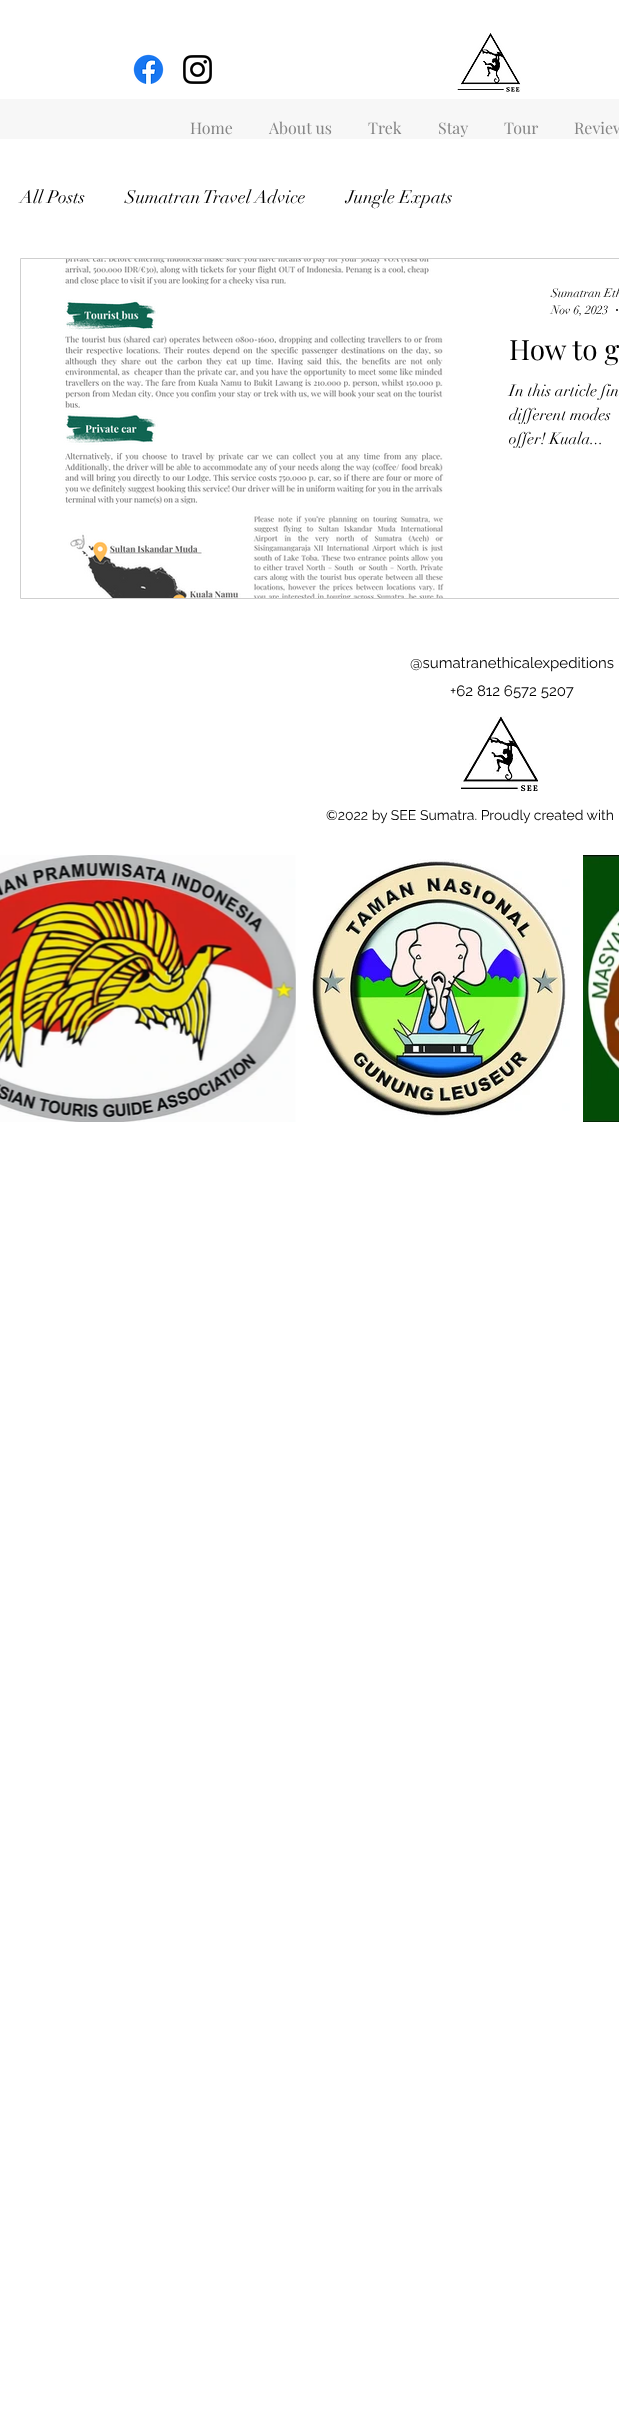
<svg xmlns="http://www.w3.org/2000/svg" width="619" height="2429">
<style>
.a{font:16px Playfair Display;fill:#858585}
.b{font:18px didot;fill:#000}
.c{font:12px didot;fill:#000}
.d{font:28px Playfair Display;fill:#000}
.e{font:16px didot;fill:#000}
.f{font:15px Raleway;fill:#000}
.g{font:14px Raleway;fill:#000}
</style>
<rect width="100%" height="100%" fill="#fff"/>
<image href="1.png" x="133" y="54" width="31" height="30"/>
<image href="2.png" x="183" y="55" width="29" height="29"/>
<image href="3.png" x="457" y="33" width="64" height="59"/>
<path fill="#f7f7f7" d="M0 99h619v40H0z"/>
<path fill="none" stroke="#cfcfcf" d="M20.5 258.5h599v340H20.5z"/>
<image href="4.png" x="21" y="259" width="453" height="339"/>
<circle fill="#000" cx="617" cy="310" r="1"/>
<image href="5.png" x="461" y="716" width="77" height="76"/>
<image href="6.png" x="0" y="855" width="296" height="267"/>
<image href="7.png" x="306" y="855" width="267" height="267"/>
<image href="8.png" x="583" y="855" width="36" height="267"/>
<text class="a" x="190" y="134">Home</text>
<text class="a" x="269" y="134">About us</text>
<text class="a" x="368" y="134">Trek</text>
<text class="a" x="438" y="134">Stay</text>
<text class="a" x="504" y="134">Tour</text>
<text class="a" x="574" y="134">Review</text>
<text class="b" x="20" y="203">All Posts</text>
<text class="b" x="125" y="203">Sumatran Travel Advice</text>
<text class="b" x="346" y="203">Jungle Expats</text>
<text class="c" x="551" y="297">Sumatran Eth</text>
<text class="c" x="551" y="314">Nov 6, 2023</text>
<text class="d" x="509" y="360">How to g</text>
<text class="e" x="509" y="396">In this article fin</text>
<text class="e" x="509" y="420">different modes</text>
<text class="e" x="509" y="444">offer! Kuala...</text>
<text class="f" x="410" y="668">@sumatranethicalexpeditions</text>
<text class="f" x="450" y="696">+62 812 6572 5207</text>
<text class="g" x="326" y="820">©2022 by SEE Sumatra. Proudly created with</text>
</svg>
